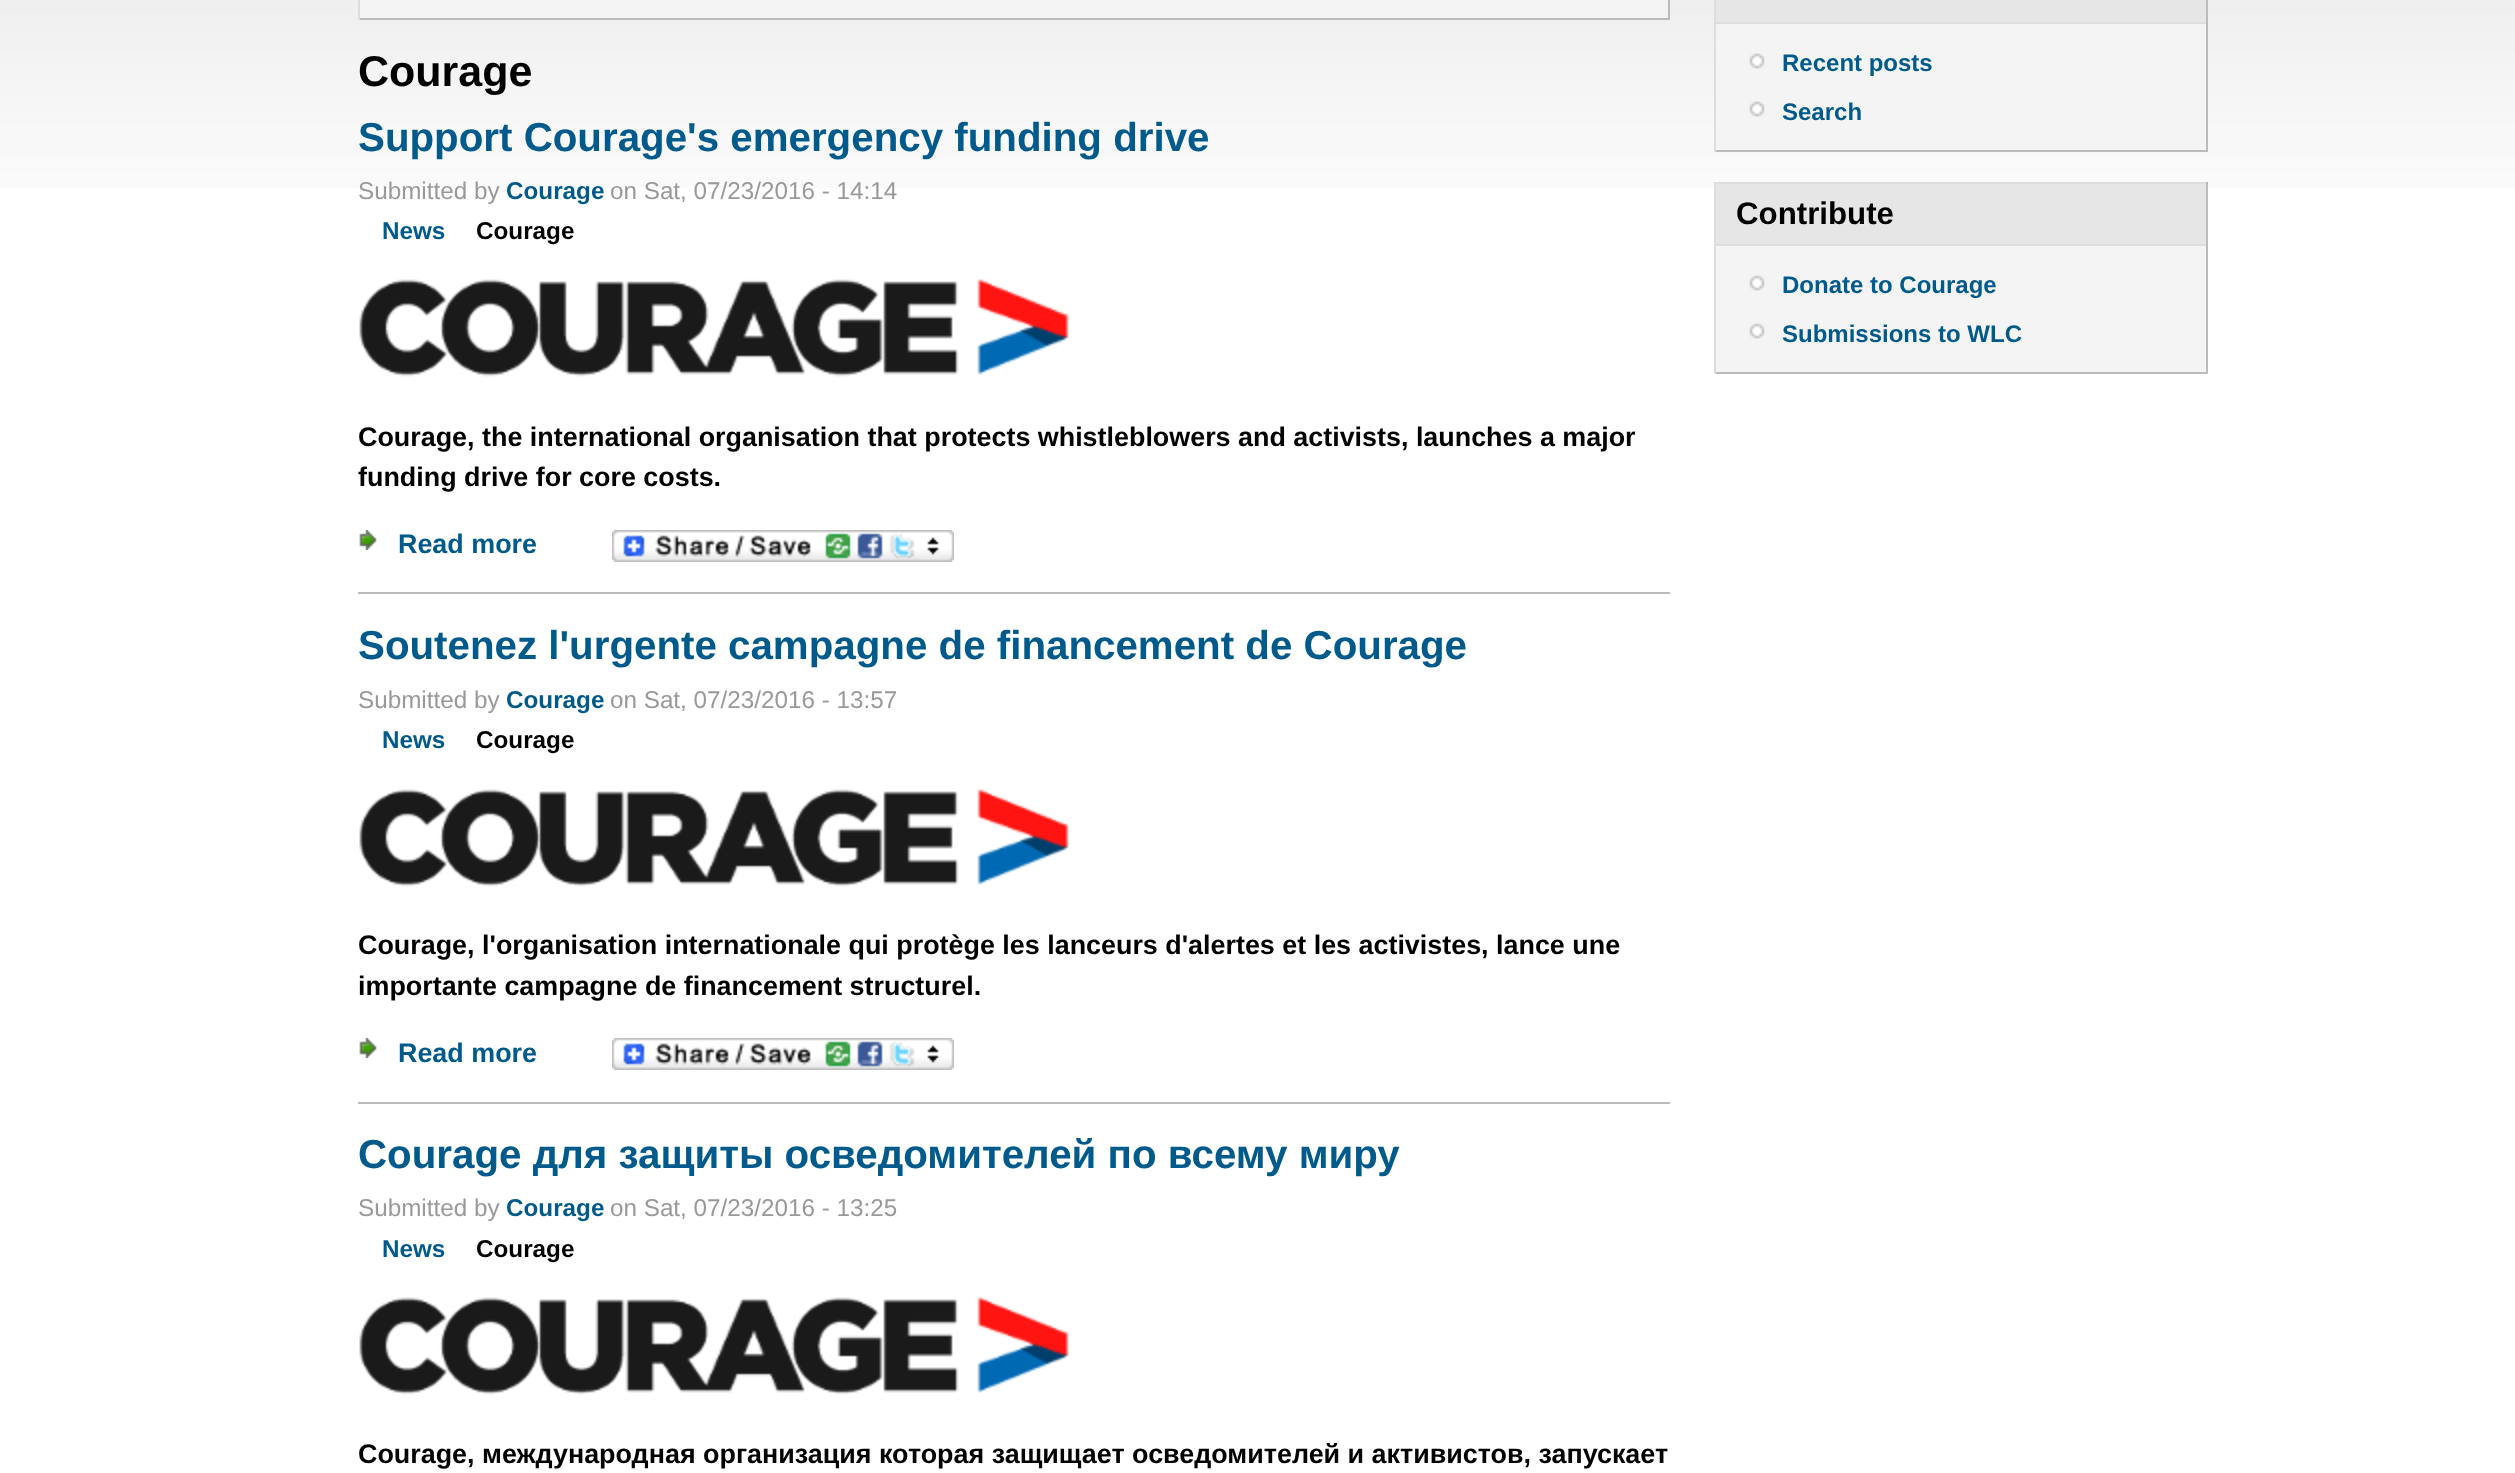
<svg xmlns="http://www.w3.org/2000/svg" width="2515" height="1473">
<style>
.a{font:bold 43px Liberation Sans;fill:#000}
.b{font:bold 40.3px Liberation Sans;fill:#005a8c}
.c{font:24.25px Liberation Sans;fill:#999}
.d{font:bold 24.25px Liberation Sans;fill:#005a8c}
.e{font:bold 24.25px Liberation Sans;fill:#000}
.f{font:bold 26.9px Liberation Sans;fill:#000}
.g{font:bold 26.9px Liberation Sans;fill:#005a8c}
.h{font:bold 24px Liberation Sans;fill:#005a8c}
.i{font:bold 31.25px Liberation Sans;fill:#000}
</style>
<rect width="100%" height="100%" fill="#fff"/>
<image href="1.png" x="0" y="0" width="2515" height="188"/>
<path fill="#f4f4f4" d="M360 0h1308v18H360z"/>
<path fill="#bbb" d="M1668 0h2v20H1668z"/>
<path fill="#bbb" d="M358 18h1312v2H358z"/>
<path fill="#ddd" d="M358 0h2v20H358z"/>
<path fill="#bbb" d="M358 592h1312v2H358z"/>
<image href="2.png" x="359" y="278" width="710" height="99"/>
<image href="3.png" x="359" y="530" width="18" height="20"/>
<image href="4.png" x="612" y="530" width="342" height="32"/>
<path fill="#bbb" d="M358 1102h1312v2H358z"/>
<image href="2.png" x="359" y="788" width="710" height="99"/>
<image href="3.png" x="359" y="1038" width="18" height="20"/>
<image href="4.png" x="612" y="1038" width="342" height="32"/>
<image href="2.png" x="359" y="1296" width="710" height="99"/>
<path fill="#e6e6e6" d="M1716 0h490v22H1716z"/>
<path fill="#bbb" d="M2206 0h2v22H2206z"/>
<path fill="#ddd" d="M1714 0h2v22H1714z"/>
<path fill="#f4f4f4" d="M1716 24h490v126H1716z"/>
<path fill="#ddd" d="M1714 22h494v2H1714z"/>
<path fill="#bbb" d="M2206 22h2v130H2206z"/>
<path fill="#bbb" d="M1714 150h494v2H1714z"/>
<path fill="#ddd" d="M1714 22h2v130H1714z"/>
<image href="5.png" x="1749" y="53" width="16" height="16"/>
<image href="5.png" x="1749" y="101" width="16" height="16"/>
<path fill="#e6e6e6" d="M1716 184h490v60H1716z"/>
<path fill="#ddd" d="M1714 182h494v2H1714z"/>
<path fill="#bbb" d="M2206 182h2v62H2206z"/>
<path fill="#ddd" d="M1714 182h2v62H1714z"/>
<path fill="#f4f4f4" d="M1716 246h490v126H1716z"/>
<path fill="#ddd" d="M1714 244h494v2H1714z"/>
<path fill="#bbb" d="M2206 244h2v130H2206z"/>
<path fill="#bbb" d="M1714 372h494v2H1714z"/>
<path fill="#ddd" d="M1714 244h2v130H1714z"/>
<image href="5.png" x="1749" y="275" width="16" height="16"/>
<image href="5.png" x="1749" y="323" width="16" height="16"/>
<text class="a" x="358" y="86">Courage</text>
<text class="b" x="358" y="151">Support Courage's emergency funding drive</text>
<text class="c" x="358" y="199">Submitted by</text>
<text class="d" x="506" y="199">Courage</text>
<text class="c" x="610" y="199">on Sat, 07/23/2016 - 14:14</text>
<text class="d" x="382" y="239">News</text>
<text class="e" x="476" y="239">Courage</text>
<text class="f" x="358" y="446">Courage, the international organisation that protects whistleblowers and activists, launches a major</text>
<text class="f" x="358" y="486">funding drive for core costs.</text>
<text class="g" x="398" y="553">Read more</text>
<text class="b" x="358" y="659">Soutenez l'urgente campagne de financement de Courage</text>
<text class="c" x="358" y="708">Submitted by</text>
<text class="d" x="506" y="708">Courage</text>
<text class="c" x="610" y="708">on Sat, 07/23/2016 - 13:57</text>
<text class="d" x="382" y="748">News</text>
<text class="e" x="476" y="748">Courage</text>
<text class="f" x="358" y="954">Courage, l'organisation internationale qui protège les lanceurs d'alertes et les activistes, lance une</text>
<text class="f" x="358" y="995">importante campagne de financement structurel.</text>
<text class="g" x="398" y="1062">Read more</text>
<text class="b" x="358" y="1168">Courage для защиты осведомителей по всему миру</text>
<text class="c" x="358" y="1216">Submitted by</text>
<text class="d" x="506" y="1216">Courage</text>
<text class="c" x="610" y="1216">on Sat, 07/23/2016 - 13:25</text>
<text class="d" x="382" y="1257">News</text>
<text class="e" x="476" y="1257">Courage</text>
<text class="f" x="358" y="1463">Courage, международная организация которая защищает осведомителей и активистов, запускает</text>
<text class="h" x="1782" y="71">Recent posts</text>
<text class="h" x="1782" y="120">Search</text>
<text class="i" x="1736" y="224">Contribute</text>
<text class="h" x="1782" y="293">Donate to Courage</text>
<text class="h" x="1782" y="342">Submissions to WLC</text>
</svg>
